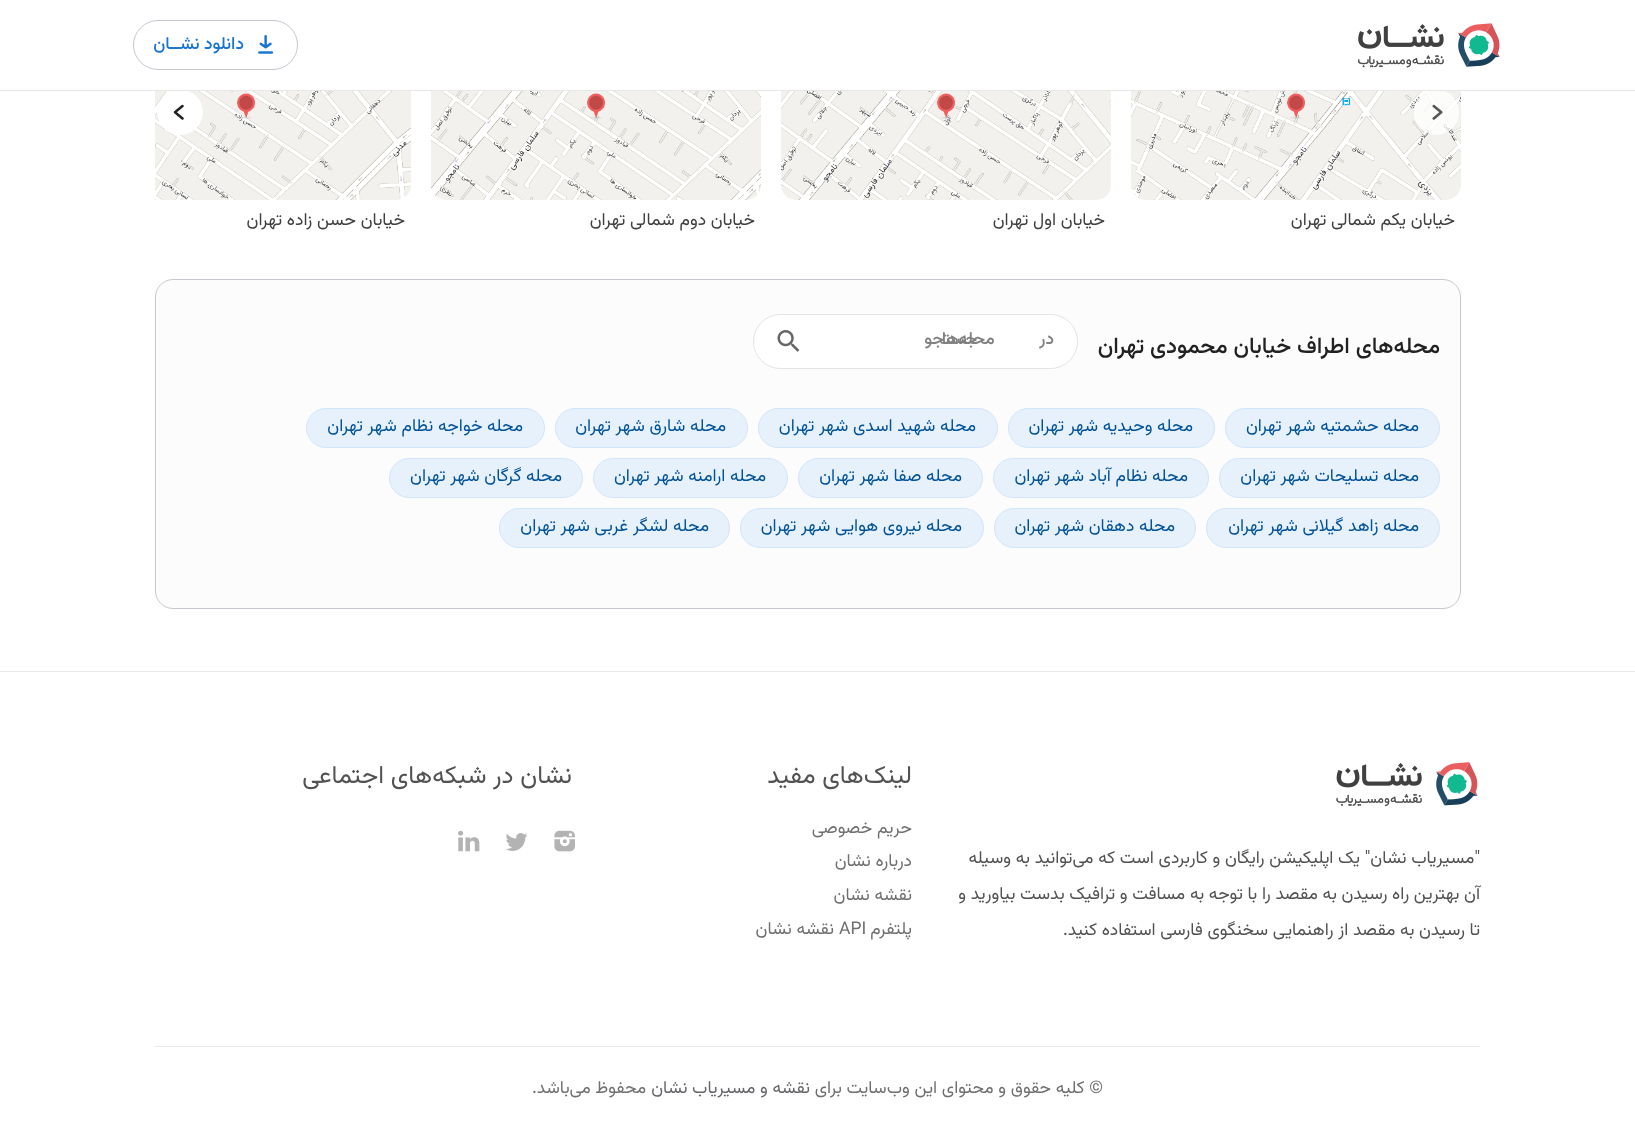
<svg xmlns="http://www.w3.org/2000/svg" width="1635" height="1131">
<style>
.a{font:500 17.5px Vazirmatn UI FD;direction:rtl;fill:#1975d2}
.b{font:17.5px Vazirmatn UI FD;direction:rtl;fill:#404040}
.c{font:500 22.5px Vazirmatn UI FD;direction:rtl;fill:#212121}
.d{font:500 17.5px Vazirmatn UI FD;direction:rtl;fill:#808080}
.e{font:17.5px Vazirmatn UI FD;direction:rtl;fill:#005299}
.f{font:17.5px Vazirmatn UI FD;direction:rtl;fill:#525252}
.g{font:25px Vazirmatn UI FD;direction:rtl;fill:#525252}
.h{font:17.5px Vazirmatn UI FD;direction:rtl;fill:#707070}
.i{font:17.5px Vazirmatn UI FD;fill:#707070}
.j{font:17.5px Vazirmatn UI FD;direction:rtl;fill:#66676b}
</style>
<rect width="100%" height="100%" fill="#fff"/>
<path fill="#e7e7e7" d="M0 90h1635v1H0z"/>
<image href="1.png" x="1358" y="23" width="142" height="45"/>
<rect fill="none" stroke="#c7c7d1" x="133.5" y="20.5" width="164" height="49" rx="24.5"/>
<image href="2.png" x="258" y="35" width="16" height="19"/>
<image href="10.png" x="155" y="91" width="256" height="109"/>
<image href="3.png" x="157" y="91" width="46" height="44"/>
<image href="7.png" x="1131" y="91" width="330" height="109"/>
<image href="4.png" x="1413" y="91" width="46" height="44"/>
<image href="5.png" x="157" y="91" width="46" height="44"/>
<image href="6.png" x="1414" y="91" width="45" height="44"/>
<image href="8.png" x="781" y="91" width="330" height="109"/>
<image href="9.png" x="431" y="91" width="330" height="109"/>
<rect fill="#fcfcfc" stroke="#c7c7d1" x="155.5" y="279.5" width="1305" height="329" rx="17.5"/>
<rect fill="#fff" stroke="#e3e3e8" x="753.5" y="314.5" width="324" height="54" rx="27"/>
<image href="11.png" x="777" y="330" width="23" height="22"/>
<rect fill="#e7f1fb" stroke="#d1e6fa" x="1225.5" y="408.5" width="214" height="39" rx="19.5"/>
<rect fill="#e7f1fb" stroke="#d1e6fa" x="1008.5" y="408.5" width="206" height="39" rx="19.5"/>
<rect fill="#e7f1fb" stroke="#d1e6fa" x="758.5" y="408.5" width="239" height="39" rx="19.5"/>
<rect fill="#e7f1fb" stroke="#d1e6fa" x="555.5" y="408.5" width="192" height="39" rx="19.5"/>
<rect fill="#e7f1fb" stroke="#d1e6fa" x="306.5" y="408.5" width="238" height="39" rx="19.5"/>
<rect fill="#e7f1fb" stroke="#d1e6fa" x="1219.5" y="458.5" width="220" height="39" rx="19.5"/>
<rect fill="#e7f1fb" stroke="#d1e6fa" x="993.5" y="458.5" width="215" height="39" rx="19.5"/>
<rect fill="#e7f1fb" stroke="#d1e6fa" x="798.5" y="458.5" width="184" height="39" rx="19.5"/>
<rect fill="#e7f1fb" stroke="#d1e6fa" x="593.5" y="458.5" width="194" height="39" rx="19.5"/>
<rect fill="#e7f1fb" stroke="#d1e6fa" x="389.5" y="458.5" width="193" height="39" rx="19.5"/>
<rect fill="#e7f1fb" stroke="#d1e6fa" x="1206.5" y="508.5" width="233" height="39" rx="19.5"/>
<rect fill="#e7f1fb" stroke="#d1e6fa" x="994.5" y="508.5" width="201" height="39" rx="19.5"/>
<rect fill="#e7f1fb" stroke="#d1e6fa" x="740.5" y="508.5" width="243" height="39" rx="19.5"/>
<rect fill="#e7f1fb" stroke="#d1e6fa" x="499.5" y="508.5" width="230" height="39" rx="19.5"/>
<path fill="#e8e8e8" d="M0 671h1635v1H0z"/>
<image href="12.png" x="1336" y="762" width="142" height="45"/>
<image href="13.png" x="554" y="830" width="21" height="22"/>
<image href="14.png" x="506" y="833" width="22" height="18"/>
<image href="15.png" x="458" y="830" width="22" height="22"/>
<path fill="#e8e8e8" d="M155 1046h1325v1H155z"/>
<text class="a" x="244" y="49">دانلود نشــان</text>
<text class="b" x="1455" y="225">خیابان یکم شمالی تهران</text>
<text class="b" x="1105" y="225">خیابان اول تهران</text>
<text class="b" x="755" y="225">خیابان دوم شمالی تهران</text>
<text class="b" x="405" y="225">خیابان حسن زاده تهران</text>
<text class="c" x="1440" y="353">محله‌های اطراف خیابان محمودی تهران</text>
<text class="d" x="977" y="344">جستجو</text>
<text class="d" x="1054" y="344" word-spacing="40">در محله‌ها</text>
<text class="e" x="1419" y="431">محله حشمتیه شهر تهران</text>
<text class="e" x="1193" y="431">محله وحیدیه شهر تهران</text>
<text class="e" x="976" y="431">محله شهید اسدی شهر تهران</text>
<text class="e" x="726" y="431">محله شارق شهر تهران</text>
<text class="e" x="523" y="431">محله خواجه نظام شهر تهران</text>
<text class="e" x="1419" y="481">محله تسلیحات شهر تهران</text>
<text class="e" x="1188" y="481">محله نظام آباد شهر تهران</text>
<text class="e" x="962" y="481">محله صفا شهر تهران</text>
<text class="e" x="766" y="481">محله ارامنه شهر تهران</text>
<text class="e" x="562" y="481">محله گرگان شهر تهران</text>
<text class="e" x="1419" y="531">محله زاهد گیلانی شهر تهران</text>
<text class="e" x="1175" y="531">محله دهقان شهر تهران</text>
<text class="e" x="962" y="531">محله نیروی هوایی شهر تهران</text>
<text class="e" x="709" y="531">محله لشگر غربی شهر تهران</text>
<text class="f" x="1480" y="863">"مسیریاب نشان" یک اپلیکیشن رایگان و کاربردی است که می‌توانید به وسیله</text>
<text class="f" x="1480" y="899">آن بهترین راه رسیدن به مقصد را با توجه به مسافت و ترافیک بدست بیاورید و</text>
<text class="f" x="1480" y="935">تا رسیدن به مقصد از راهنمایی سخنگوی فارسی استفاده کنید.</text>
<text class="g" x="912" y="783">لینک‌های مفید</text>
<text class="h" x="912" y="833">حریم خصوصی</text>
<text class="h" x="912" y="866">درباره نشان</text>
<text class="h" x="912" y="900">نقشه نشان</text>
<text class="h" x="912" y="934">پلتفرم</text>
<text class="i" x="839" y="934">API</text>
<text class="h" x="834" y="934">نقشه نشان</text>
<text class="g" x="572" y="783">نشان در شبکه‌های اجتماعی</text>
<text class="h" x="1103" y="1093">© کلیه حقوق و محتوای این وب‌سایت برای</text>
<text class="j" x="810" y="1093">نقشه و مسیریاب نشان</text>
<text class="h" x="646" y="1093">محفوظ می‌باشد.</text>
</svg>
